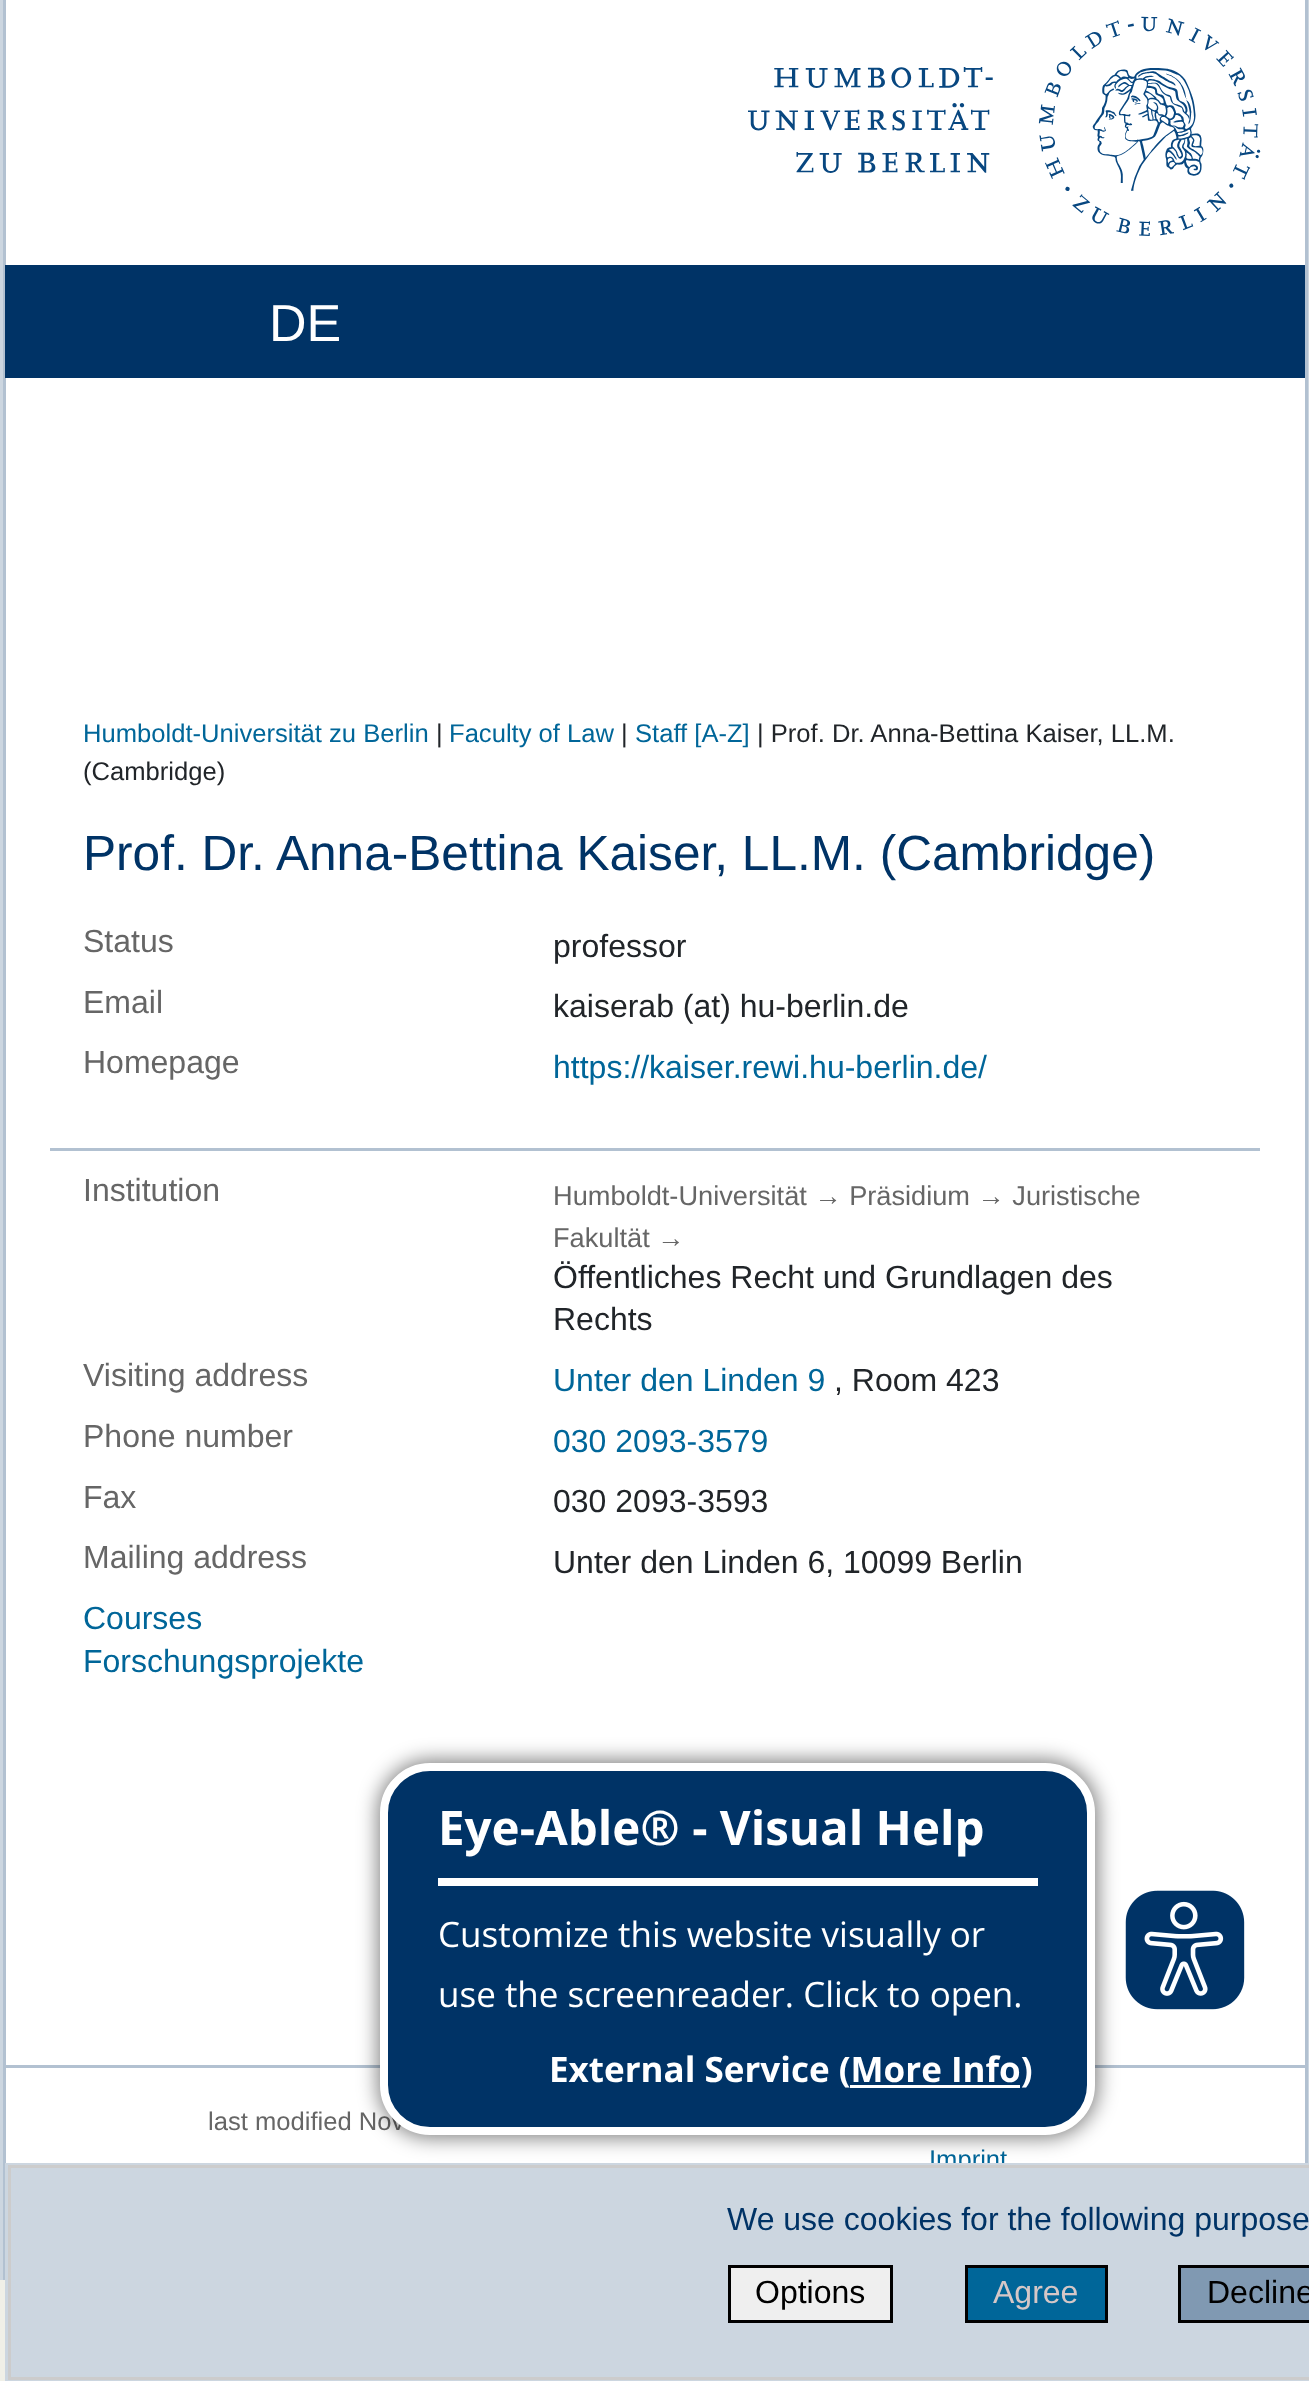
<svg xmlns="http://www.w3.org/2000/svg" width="1309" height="2381">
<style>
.a{font:52px Liberation Sans;fill:#fff}
.b{font:25.6px Liberation Sans;fill:#069}
.c{font:25.6px Liberation Sans;fill:#212529}
.d{font:49.6px Liberation Sans;fill:#036}
.e{font:32px Liberation Sans;fill:#666}
.f{font:32px Liberation Sans;fill:#212529}
.g{font:32px Liberation Sans;fill:#069}
.h{font:27.2px Liberation Sans;fill:#666}
.i{font:25.6px Liberation Sans;fill:#666}
.j{font:bold 35px Open Sans;fill:#fff}
.k{font:35px Open Sans;fill:#fff}
.l{font:bold 47.5px Open Sans;fill:#fff}
.m{font:32px Liberation Sans;fill:#036}
.n{font:32px Liberation Sans;fill:#000}
.o{font:32px Liberation Sans;fill:#d5c7c7}
</style>
<rect width="100%" height="100%" fill="#f0f0e8"/>
<path fill="#ccd6e0" d="M1308 0h1v2163H1308z"/>
<path fill="#ccd6e0" d="M0 0h3v2280H0z"/>
<path fill="#fff" d="M6 0h1299v2163H6z"/>
<image href="1.png" x="748" y="16" width="513" height="220"/>
<path fill="#b2c1d1" d="M3 0h3v2280H3z"/>
<path fill="#036" d="M5 265h1300v113H5z"/>
<path fill="#b2c1d1" d="M1305 0h3v2163H1305z"/>
<path fill="#b2c1d1" d="M50 1148h1210v3H50z"/>
<path fill="#b2c1d1" d="M5 2065h1300v3H5z"/>
<text class="a" x="269" y="341">DE</text>
<text class="b" x="83" y="742">Humboldt-Universität zu Berlin</text>
<text class="c" x="436" y="742">|</text>
<text class="b" x="449" y="742">Faculty of Law</text>
<text class="c" x="621" y="742">|</text>
<text class="b" x="635" y="742">Staff [A-Z]</text>
<text class="c" x="757" y="742">| Prof. Dr. Anna-Bettina Kaiser, LL.M.</text>
<text class="c" x="83" y="780">(Cambridge)</text>
<text class="d" x="83" y="870">Prof. Dr. Anna-Bettina Kaiser, LL.M. (Cambridge)</text>
<text class="e" x="83" y="952">Status</text>
<text class="f" x="553" y="957">professor</text>
<text class="e" x="83" y="1013">Email</text>
<text class="f" x="553" y="1017">kaiserab (at) hu-berlin.de</text>
<text class="e" x="83" y="1073">Homepage</text>
<text class="g" x="553" y="1078">https://kaiser.rewi.hu-berlin.de/</text>
<text class="e" x="83" y="1201">Institution</text>
<text class="h" x="553" y="1205">Humboldt-Universität → Präsidium → Juristische</text>
<text class="h" x="553" y="1247">Fakultät →</text>
<text class="f" x="553" y="1288">Öffentliches Recht und Grundlagen des</text>
<text class="f" x="553" y="1330">Rechts</text>
<text class="e" x="83" y="1386">Visiting address</text>
<text class="g" x="553" y="1391">Unter den Linden 9</text>
<text class="f" x="834" y="1391">, Room 423</text>
<text class="e" x="83" y="1447">Phone number</text>
<text class="g" x="553" y="1452">030 2093-3579</text>
<text class="e" x="83" y="1508">Fax</text>
<text class="f" x="553" y="1512">030 2093-3593</text>
<text class="e" x="83" y="1568">Mailing address</text>
<text class="f" x="553" y="1573">Unter den Linden 6, 10099 Berlin</text>
<text class="g" x="83" y="1629">Courses</text>
<text class="g" x="83" y="1672">Forschungsprojekte</text>
<text class="i" x="208" y="2130">last modified Nov</text>
<text class="b" x="929" y="2168">Imprint</text>
<path fill="none" stroke="#ccd6e0" stroke-width="3" d="M6.5 2164.5h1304v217H6.5z"/>
<path fill="#ccd6e0" stroke="#ccc" stroke-width="3" d="M9.5 2166.5h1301v212H9.5z"/>
<rect fill="#00000080" filter="blur(10px)" x="378" y="1760" width="720" height="378" rx="53"/>
<image href="2.png" x="1125" y="1890" width="120" height="120"/>
<rect fill="#036" stroke="#fff" stroke-width="8" x="384" y="1767" width="707" height="364" rx="46"/>
<path fill="#fff" d="M850 2085h170v3H850z"/>
<text class="j" x="549" y="2082">External Service (More Info)</text>
<text class="k" x="438" y="2007">use the screenreader. Click to open.</text>
<text class="k" x="438" y="1947">Customize this website visually or</text>
<text class="l" x="438" y="1845">Eye-Able® - Visual Help</text>
<path fill="#fff" d="M438 1878h600v8H438z"/>
<text class="m" x="727" y="2230">We use cookies for the following purpose</text>
<path fill="#efefef" stroke="#000" stroke-width="3" d="M729.5 2266.5h162v55H729.5z"/>
<text class="n" x="755" y="2303">Options</text>
<path fill="#069" stroke="#000" stroke-width="3" d="M966.5 2266.5h140v55H966.5z"/>
<text class="o" x="993" y="2303">Agree</text>
<path fill="#8099b2" stroke="#000" stroke-width="3" d="M1179.5 2266.5h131v55H1179.5z"/>
<text class="n" x="1207" y="2303">Decline</text>
</svg>
